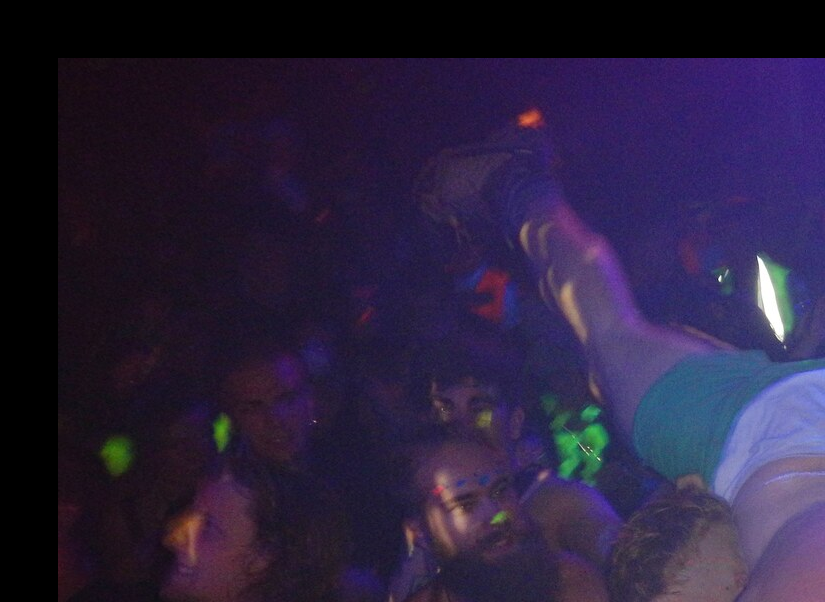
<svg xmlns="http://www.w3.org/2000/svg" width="825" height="602">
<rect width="100%" height="100%" fill="#000"/>
<image href="1.png" x="58" y="58" width="767" height="544"/>
</svg>
